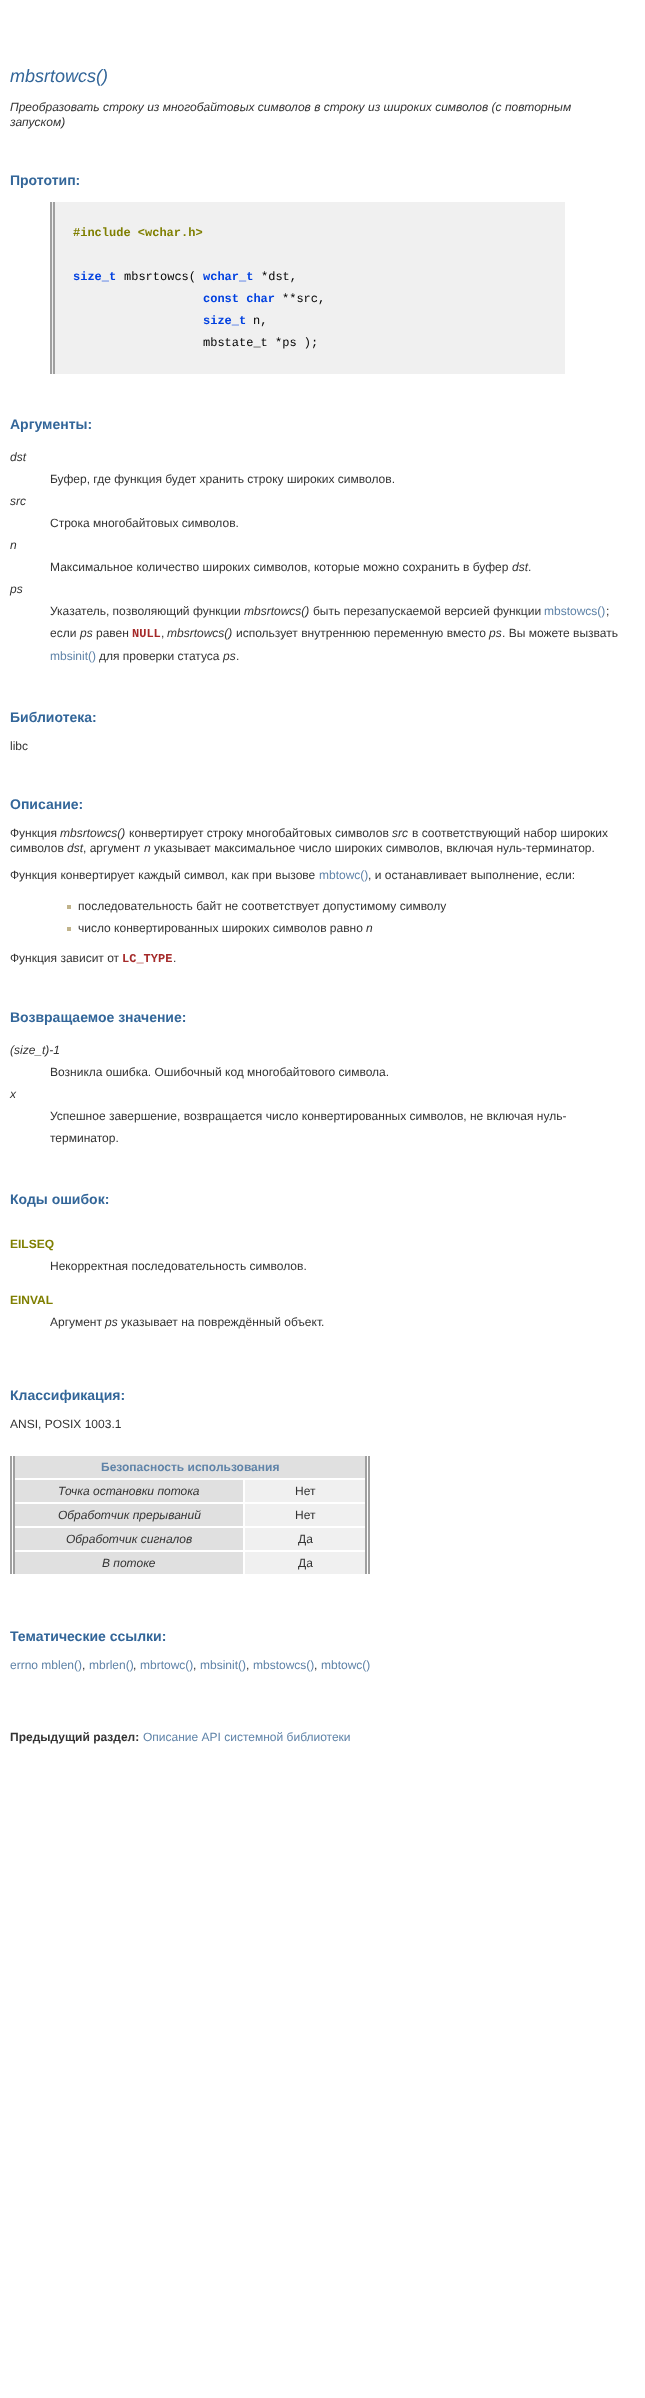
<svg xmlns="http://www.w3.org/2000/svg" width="645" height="2398">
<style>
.a{font:italic 18px Liberation Sans;fill:#369}
.b{font:italic 12px Liberation Sans;fill:#333}
.c{font:bold 14px Liberation Sans;fill:#369}
.d{font:bold 12px Liberation Mono;fill:#7f7f00}
.e{font:bold 12px Liberation Mono;fill:#0040e0}
.f{font:12px Liberation Mono;fill:#000}
.g{font:12px Liberation Sans;fill:#333}
.h{font:12px Liberation Sans;fill:#5f83a8}
.i{font:bold 12px Liberation Mono;fill:#a52a2a}
.j{font:bold 12px Liberation Sans;fill:#7f7f00}
.k{font:bold 12px Liberation Sans;fill:#5f83a8}
.l{font:bold 12px Liberation Sans;fill:#333}
</style>
<rect width="100%" height="100%" fill="#fff"/>
<path fill="#f0f0f0" d="M52 202h513v172H52z"/>
<path fill="#a0a0a0" d="M50 202h2v172H50z"/>
<path fill="#a0a0a0" d="M53 202h2v172H53z"/>
<path fill="#c0b38b" d="M67 905h4v4H67z"/>
<path fill="#c0b38b" d="M67 927h4v4H67z"/>
<path fill="#a0a0a0" d="M365 1456h2v118H365z"/>
<path fill="#a0a0a0" d="M368 1456h2v118H368z"/>
<path fill="#a0a0a0" d="M10 1456h2v118H10z"/>
<path fill="#a0a0a0" d="M13 1456h2v118H13z"/>
<path fill="#e0e0e0" d="M15 1456h350v22H15z"/>
<path fill="#e0e0e0" d="M15 1480h228v22H15z"/>
<path fill="#f0f0f0" d="M245 1480h120v22H245z"/>
<path fill="#e0e0e0" d="M15 1504h228v22H15z"/>
<path fill="#f0f0f0" d="M245 1504h120v22H245z"/>
<path fill="#e0e0e0" d="M15 1528h228v22H15z"/>
<path fill="#f0f0f0" d="M245 1528h120v22H245z"/>
<path fill="#e0e0e0" d="M15 1552h228v22H15z"/>
<path fill="#f0f0f0" d="M245 1552h120v22H245z"/>
<text class="a" x="10" y="82">mbsrtowcs()</text>
<text class="b" x="10" y="111">Преобразовать строку из многобайтовых символов в строку из широких символов (с повторным</text>
<text class="b" x="10" y="126">запуском)</text>
<text class="c" x="10" y="185">Прототип:</text>
<text class="d" x="73" y="236">#include &lt;wchar.h&gt;</text>
<text class="e" x="73" y="280">size_t</text>
<text class="f" x="124" y="280">mbsrtowcs(</text>
<text class="e" x="203" y="280">wchar_t</text>
<text class="f" x="261" y="280">*dst,</text>
<text class="e" x="203" y="302">const char</text>
<text class="f" x="282" y="302">**src,</text>
<text class="e" x="203" y="324">size_t</text>
<text class="f" x="253" y="324">n,</text>
<text class="f" x="203" y="346">mbstate_t *ps );</text>
<text class="c" x="10" y="429">Аргументы:</text>
<text class="b" x="10" y="461">dst</text>
<text class="g" x="50" y="483">Буфер, где функция будет хранить строку широких символов.</text>
<text class="b" x="10" y="505">src</text>
<text class="g" x="50" y="527">Строка многобайтовых символов.</text>
<text class="b" x="10" y="549">n</text>
<text class="g" x="50" y="571">Максимальное количество широких символов, которые можно сохранить в буфер</text>
<text class="b" x="512" y="571">dst</text>
<text class="g" x="528" y="571">.</text>
<text class="b" x="10" y="593">ps</text>
<text class="g" x="50" y="615">Указатель, позволяющий функции</text>
<text class="b" x="244" y="615">mbsrtowcs()</text>
<text class="g" x="313" y="615">быть перезапускаемой версией функции</text>
<text class="h" x="544" y="615">mbstowcs()</text>
<text class="g" x="606" y="615">;</text>
<text class="g" x="50" y="637">если</text>
<text class="b" x="80" y="637">ps</text>
<text class="g" x="96" y="637">равен</text>
<text class="i" x="132" y="637">NULL</text>
<text class="g" x="161" y="637">,</text>
<text class="b" x="167" y="637">mbsrtowcs()</text>
<text class="g" x="236" y="637">использует внутреннюю переменную вместо</text>
<text class="b" x="489" y="637">ps</text>
<text class="g" x="502" y="637">. Вы можете вызвать</text>
<text class="h" x="50" y="660">mbsinit()</text>
<text class="g" x="99" y="660">для проверки статуса</text>
<text class="b" x="223" y="660">ps</text>
<text class="g" x="236" y="660">.</text>
<text class="c" x="10" y="722">Библиотека:</text>
<text class="g" x="10" y="750">libc</text>
<text class="c" x="10" y="809">Описание:</text>
<text class="g" x="10" y="837">Функция</text>
<text class="b" x="60" y="837">mbsrtowcs()</text>
<text class="g" x="129" y="837">конвертирует строку многобайтовых символов</text>
<text class="b" x="392" y="837">src</text>
<text class="g" x="412" y="837">в соответствующий набор широких</text>
<text class="g" x="10" y="852">символов</text>
<text class="b" x="67" y="852">dst</text>
<text class="g" x="83" y="852">, аргумент</text>
<text class="b" x="144" y="852">n</text>
<text class="g" x="154" y="852">указывает максимальное число широких символов, включая нуль-терминатор.</text>
<text class="g" x="10" y="879">Функция конвертирует каждый символ, как при вызове</text>
<text class="h" x="319" y="879">mbtowc()</text>
<text class="g" x="368" y="879">, и останавливает выполнение, если:</text>
<text class="g" x="78" y="910">последовательность байт не соответствует допустимому символу</text>
<text class="g" x="78" y="932">число конвертированных широких символов равно</text>
<text class="b" x="366" y="932">n</text>
<text class="g" x="10" y="962">Функция зависит от</text>
<text class="i" x="122" y="962">LC_TYPE</text>
<text class="g" x="173" y="962">.</text>
<text class="c" x="10" y="1022">Возвращаемое значение:</text>
<text class="b" x="10" y="1054">(size_t)-1</text>
<text class="g" x="50" y="1076">Возникла ошибка. Ошибочный код многобайтового символа.</text>
<text class="b" x="10" y="1098">x</text>
<text class="g" x="50" y="1120">Успешное завершение, возвращается число конвертированных символов, не включая нуль-</text>
<text class="g" x="50" y="1142">терминатор.</text>
<text class="c" x="10" y="1204">Коды ошибок:</text>
<text class="j" x="10" y="1248">EILSEQ</text>
<text class="g" x="50" y="1270">Некорректная последовательность символов.</text>
<text class="j" x="10" y="1304">EINVAL</text>
<text class="g" x="50" y="1326">Аргумент</text>
<text class="b" x="105" y="1326">ps</text>
<text class="g" x="121" y="1326">указывает на повреждённый объект.</text>
<text class="c" x="10" y="1400">Классификация:</text>
<text class="g" x="10" y="1428">ANSI, POSIX 1003.1</text>
<text class="k" x="101" y="1471">Безопасность использования</text>
<text class="b" x="58" y="1495">Точка остановки потока</text>
<text class="g" x="295" y="1495">Нет</text>
<text class="b" x="58" y="1519">Обработчик прерываний</text>
<text class="g" x="295" y="1519">Нет</text>
<text class="b" x="66" y="1543">Обработчик сигналов</text>
<text class="g" x="298" y="1543">Да</text>
<text class="b" x="102" y="1567">В потоке</text>
<text class="g" x="298" y="1567">Да</text>
<text class="c" x="10" y="1641">Тематические ссылки:</text>
<text class="h" x="10" y="1669">errno mblen()</text>
<text class="g" x="82" y="1669">,</text>
<text class="h" x="89" y="1669">mbrlen()</text>
<text class="g" x="133" y="1669">,</text>
<text class="h" x="140" y="1669">mbrtowc()</text>
<text class="g" x="193" y="1669">,</text>
<text class="h" x="200" y="1669">mbsinit()</text>
<text class="g" x="246" y="1669">,</text>
<text class="h" x="253" y="1669">mbstowcs()</text>
<text class="g" x="314" y="1669">,</text>
<text class="h" x="321" y="1669">mbtowc()</text>
<text class="l" x="10" y="1741">Предыдущий раздел:</text>
<text class="h" x="143" y="1741">Описание API системной библиотеки</text>
</svg>
